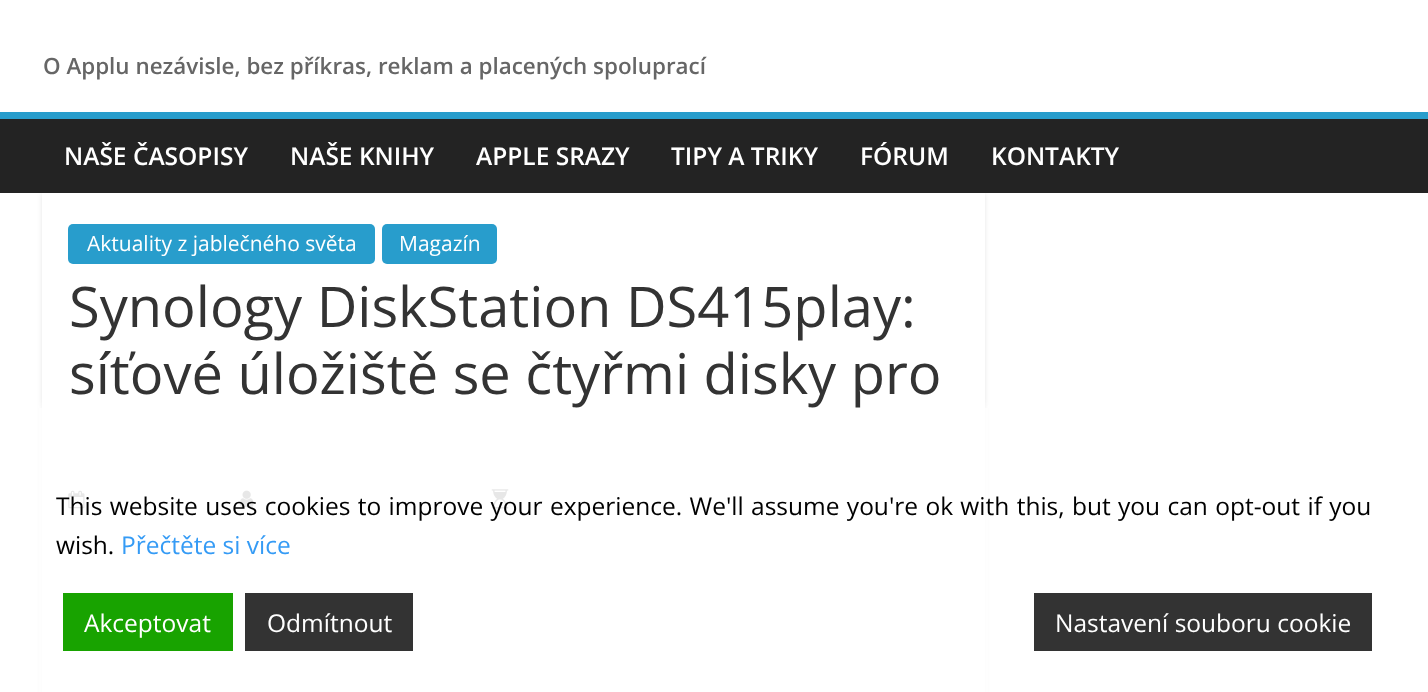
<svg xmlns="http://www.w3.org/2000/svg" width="1428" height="692">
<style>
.a{font:600 22.4px Open Sans;fill:#666}
.b{font:600 24.5px Open Sans;fill:#fff}
.c{font:21px Open Sans;fill:#fff}
.d{font:56px Open Sans;fill:#333}
.e{font:24.5px Open Sans;fill:#000}
.f{font:24.5px Open Sans;fill:#359bf5}
.g{font:24.5px Open Sans;fill:#fff}
</style>
<defs>
<clipPath id="clip1"><path d="M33 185h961v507h-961zm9 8h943v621h-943z" clip-rule="evenodd"/></clipPath>
<clipPath id="clip2"><path d="M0 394h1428v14H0z"/></clipPath>
</defs>
<rect width="100%" height="100%" fill="#fff"/>
<g clip-path="url(#clip1)">
<path fill="#0000001a" filter="blur(2.5px)" d="M42 194h943v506H42z"/>
</g>
<path fill="#232323" d="M0 119h1428v74H0z"/>
<path fill="#289dcc" d="M0 112h1428v7H0z"/>
<rect fill="#289dcc" x="68" y="224" width="307" height="40" rx="5"/>
<rect fill="#289dcc" x="382" y="224" width="115" height="40" rx="5"/>
<image href="1.png" x="68" y="490" width="17" height="19"/>
<image href="2.png" x="239" y="490" width="15" height="18"/>
<image href="3.png" x="491" y="489" width="18" height="20"/>
<g clip-path="url(#clip2)">
<path fill="#fff" filter="blur(7px)" d="M0 408h1428v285H0z"/>
</g>
<path fill="#ffffffcc" d="M39 408h949v284H39z"/>
<path fill="#18a300" d="M63 593h170v58H63z"/>
<path fill="#333" d="M245 593h168v58H245z"/>
<path fill="#333" d="M1034 593h338v58H1034z"/>
<text class="a" x="43" y="74">O Applu nezávisle, bez příkras, reklam a placených spoluprací</text>
<text class="b" x="64" y="165">NAŠE ČASOPISY</text>
<text class="b" x="290" y="165">NAŠE KNIHY</text>
<text class="b" x="476" y="165">APPLE SRAZY</text>
<text class="b" x="671" y="165">TIPY A TRIKY</text>
<text class="b" x="860" y="165">FÓRUM</text>
<text class="b" x="991" y="165">KONTAKTY</text>
<text class="c" x="87" y="251">Aktuality z jablečného světa</text>
<text class="c" x="399" y="251">Magazín</text>
<text class="d" x="69" y="327">Synology DiskStation DS415play:</text>
<text class="d" x="69" y="394">síťové úložiště se čtyřmi disky pro</text>
<text class="e" x="56" y="515" word-spacing="1">This website uses cookies to improve your experience. We'll assume you're ok with this, but you can opt-out if you</text>
<text class="e" x="56" y="554">wish.</text>
<text class="f" x="121" y="554">Přečtěte si více</text>
<text class="g" x="84" y="632">Akceptovat</text>
<text class="g" x="267" y="632">Odmítnout</text>
<text class="g" x="1055" y="632">Nastavení souboru cookie</text>
</svg>
